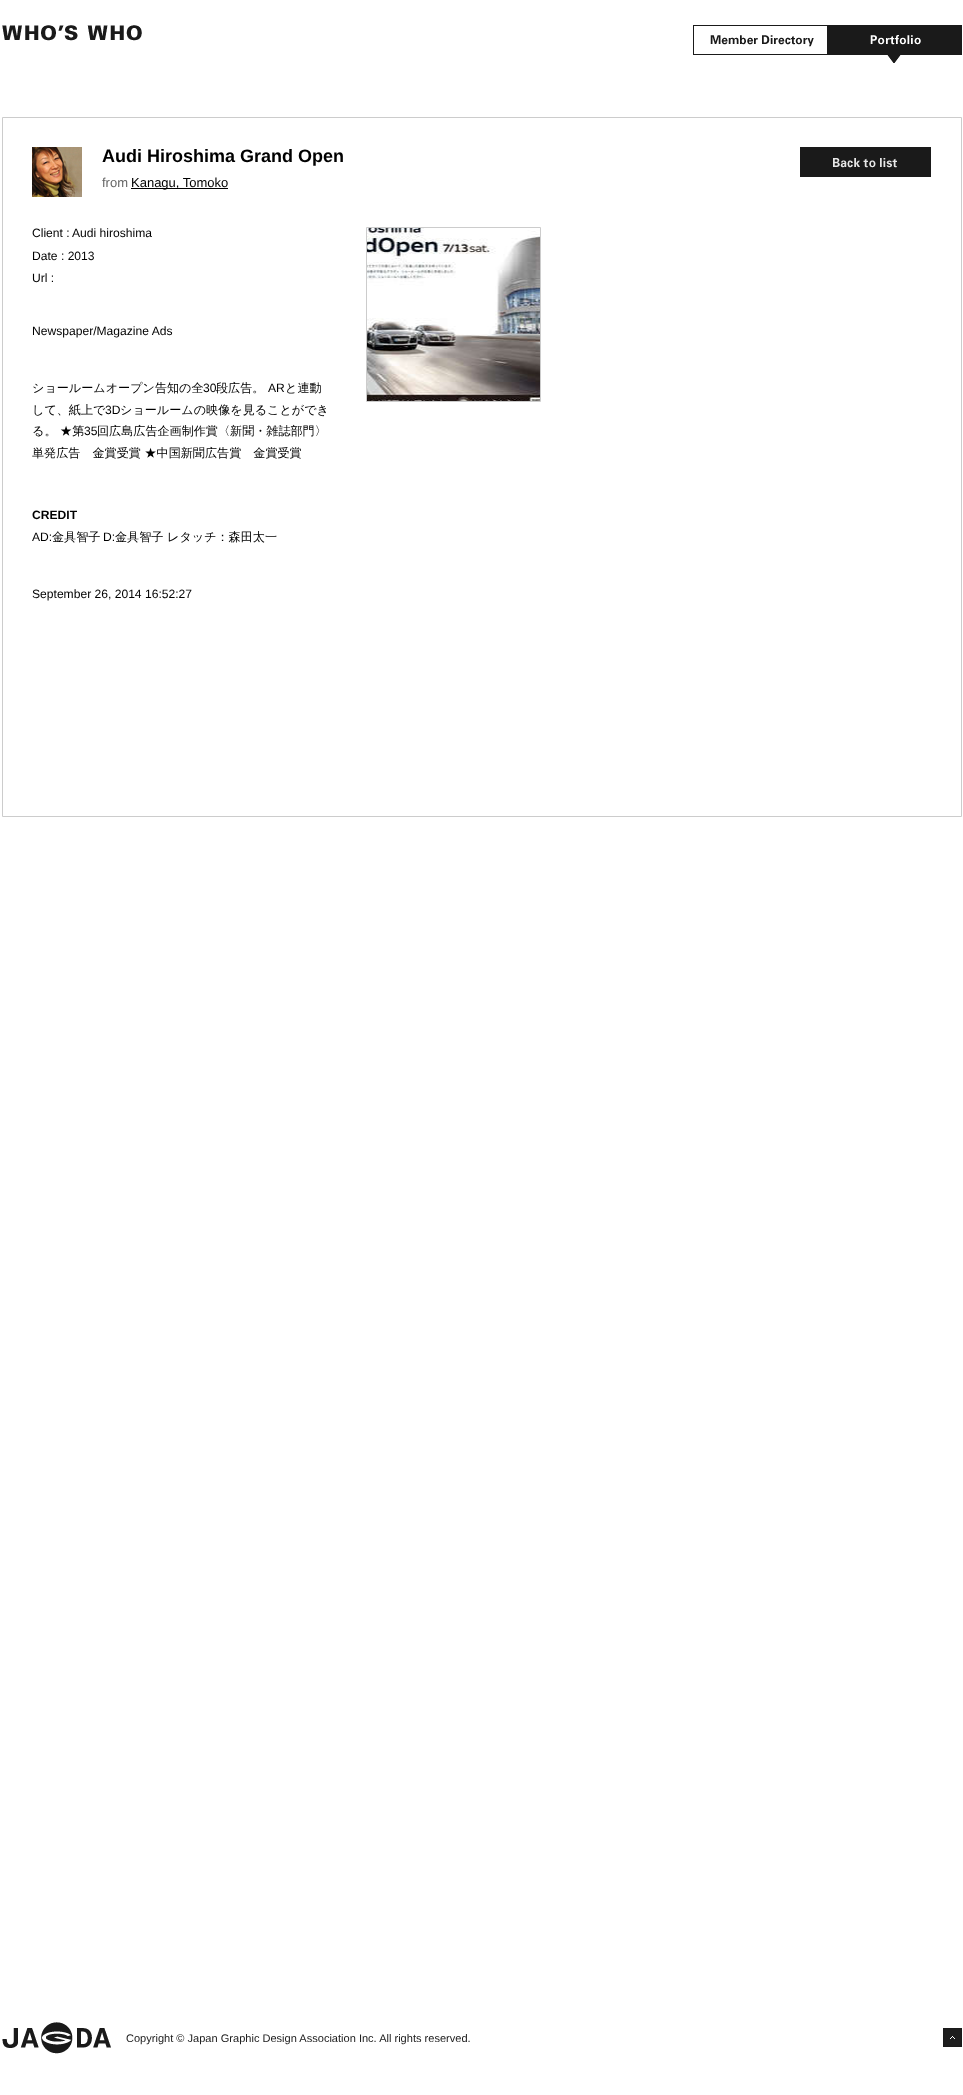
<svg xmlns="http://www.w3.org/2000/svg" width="963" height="2095">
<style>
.a{font:bold 18px Liberation Sans;fill:#000}
.b{font:13px Liberation Sans;fill:#666}
.c{font:13px Liberation Sans;fill:#000}
.d{font:12.1px Liberation Sans;fill:#000}
.e{font:500 12.1px WenQuanYi Zen Hei;fill:#000}
.f{font:bold 12.1px Liberation Sans;fill:#000}
.g{font:11.05px Liberation Sans;fill:#1a1a1a}
</style>
<rect width="100%" height="100%" fill="#fff"/>
<image href="1.png" x="2" y="25" width="140" height="16"/>
<image href="2.png" x="693" y="25" width="134" height="30"/>
<image href="3.png" x="827" y="25" width="135" height="38"/>
<path fill="none" stroke="#ccc" d="M2.5 117.5h959v699H2.5z"/>
<image href="4.png" x="32" y="147" width="50" height="50"/>
<image href="5.png" x="800" y="147" width="131" height="30"/>
<path fill="#000" d="M131 188h97v1H131z"/>
<image href="6.png" x="367" y="228" width="173" height="173"/>
<path fill="none" stroke="#ccc" d="M366.5 227.5h174v174H366.5z"/>
<image href="7.png" x="2" y="2022" width="109" height="32"/>
<image href="8.png" x="943" y="2028" width="19" height="19"/>
<text class="a" x="102" y="162">Audi Hiroshima Grand Open</text>
<text class="b" x="102" y="187">from</text>
<text class="c" x="131" y="187">Kanagu, Tomoko</text>
<text class="d" x="32" y="237">Client :</text>
<text class="d" x="72" y="237">Audi hiroshima</text>
<text class="d" x="32" y="260">Date : 2013</text>
<text class="d" x="32" y="282">Url :</text>
<text class="d" x="32" y="335">Newspaper/Magazine Ads</text>
<text class="e" x="32" y="392">ショールームオープン告知の全</text>
<text class="d" x="203" y="392">30</text>
<text class="e" x="216" y="392">段広告。</text>
<text class="d" x="268" y="392">AR</text>
<text class="e" x="285" y="392">と連動</text>
<text class="e" x="32" y="414">して、紙上で</text>
<text class="d" x="105" y="414">3D</text>
<text class="e" x="120" y="414">ショールームの映像を見ることができ</text>
<text class="e" x="32" y="435">る。 ★第</text>
<text class="d" x="84" y="435">35</text>
<text class="e" x="97" y="435">回広島広告企画制作賞〈新聞・雑誌部門〉</text>
<text class="e" x="32" y="457">単発広告　金賞受賞 ★中国新聞広告賞　金賞受賞</text>
<text class="f" x="32" y="519">CREDIT</text>
<text class="d" x="32" y="541">AD:</text>
<text class="e" x="52" y="541">金具智子</text>
<text class="d" x="103" y="541">D:</text>
<text class="e" x="115" y="541">金具智子 レタッチ：森田太一</text>
<text class="d" x="32" y="598">September 26, 2014 16:52:27</text>
<text class="g" x="126" y="2042">Copyright © Japan Graphic Design Association Inc. All rights reserved.</text>
</svg>
